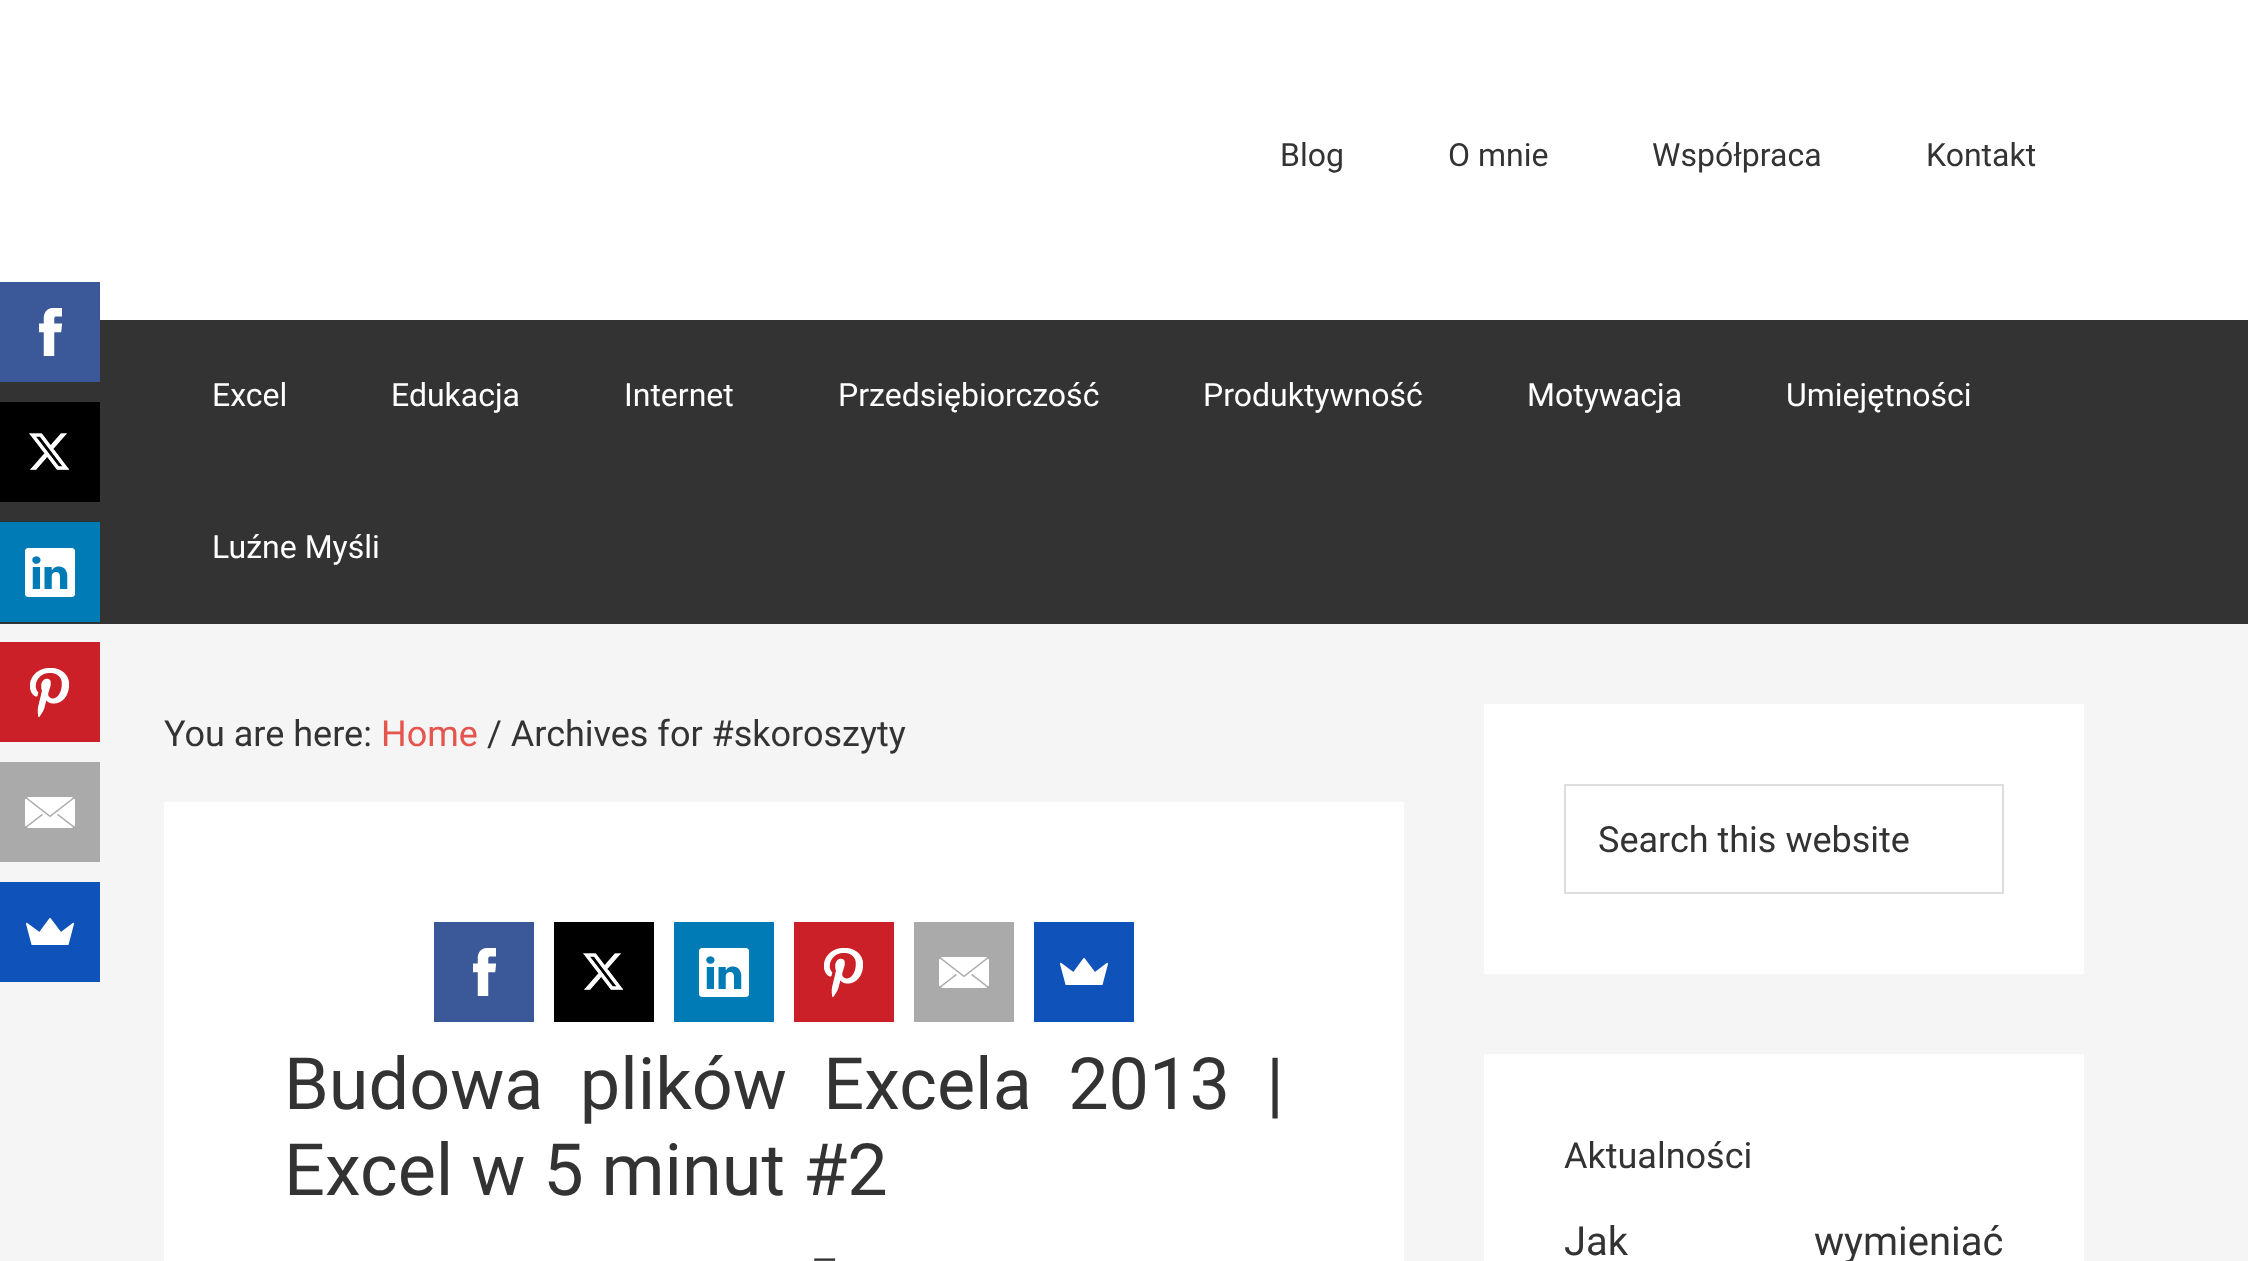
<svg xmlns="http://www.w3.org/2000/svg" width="2248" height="1261">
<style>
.a{font:32px Roboto;fill:#333}
.b{font:32px Roboto;fill:#fff}
.c{font:36px Roboto;fill:#333}
.d{font:36px Roboto;fill:#e5554e}
.e{font:72px Roboto;fill:#333}
.f{font:40px Roboto;fill:#333}
</style>
<rect width="100%" height="100%" fill="#f5f5f5"/>
<path fill="#fff" d="M0 0h2248v320H0z"/>
<path fill="#333" d="M0 320h2248v304H0z"/>
<path fill="#3b5998" d="M0 282h100v100H0z"/>
<image href="1.png" x="39" y="308" width="23" height="48"/>
<path fill="#000" d="M0 402h100v100H0z"/>
<image href="2.png" x="29" y="433" width="40" height="37"/>
<path fill="#007bb6" d="M0 522h100v100H0z"/>
<image href="3.png" x="25" y="548" width="50" height="49"/>
<path fill="#cb2027" d="M0 642h100v100H0z"/>
<image href="4.png" x="30" y="668" width="39" height="49"/>
<path fill="#aaa" d="M0 762h100v100H0z"/>
<image href="5.png" x="25" y="797" width="50" height="31"/>
<path fill="#0f52ba" d="M0 882h100v100H0z"/>
<image href="6.png" x="26" y="918" width="48" height="27"/>
<path fill="#fff" d="M164 802h1240v459H164z"/>
<path fill="#3b5998" d="M434 922h100v100H434z"/>
<image href="1.png" x="473" y="948" width="23" height="48"/>
<path fill="#000" d="M554 922h100v100H554z"/>
<image href="2.png" x="583" y="953" width="40" height="37"/>
<path fill="#007bb6" d="M674 922h100v100H674z"/>
<image href="3.png" x="699" y="948" width="50" height="49"/>
<path fill="#cb2027" d="M794 922h100v100H794z"/>
<image href="4.png" x="824" y="948" width="39" height="49"/>
<path fill="#aaa" d="M914 922h100v100H914z"/>
<image href="5.png" x="939" y="957" width="50" height="31"/>
<path fill="#0f52ba" d="M1034 922h100v100H1034z"/>
<image href="6.png" x="1060" y="958" width="48" height="27"/>
<path fill="#fff" d="M1484 704h600v270H1484z"/>
<path fill="none" stroke="#ddd" stroke-width="2" d="M1565 785h438v108H1565z"/>
<path fill="#fff" d="M1484 1054h600v207H1484z"/>
<text class="a" x="1280" y="166">Blog</text>
<text class="a" x="1448" y="166">O mnie</text>
<text class="a" x="1652" y="166">Współpraca</text>
<text class="a" x="1926" y="166">Kontakt</text>
<text class="b" x="212" y="406">Excel</text>
<text class="b" x="391" y="406">Edukacja</text>
<text class="b" x="624" y="406">Internet</text>
<text class="b" x="838" y="406">Przedsiębiorczość</text>
<text class="b" x="1203" y="406">Produktywność</text>
<text class="b" x="1527" y="406">Motywacja</text>
<text class="b" x="1786" y="406">Umiejętności</text>
<text class="b" x="212" y="558">Luźne Myśli</text>
<text class="c" x="164" y="746">You are here:</text>
<text class="d" x="381" y="746">Home</text>
<text class="c" x="487" y="746">/ Archives for #skoroszyty</text>
<text class="e" x="284" y="1109" word-spacing="18.5">Budowa plików Excela 2013 |</text>
<text class="e" x="284" y="1195">Excel w 5 minut #2</text>
<text class="a" x="812" y="1271">—</text>
<text class="c" x="1598" y="852">Search this website</text>
<text class="c" x="1564" y="1168">Aktualności</text>
<text class="f" x="1564" y="1255" word-spacing="176">Jak wymieniać</text>
</svg>
